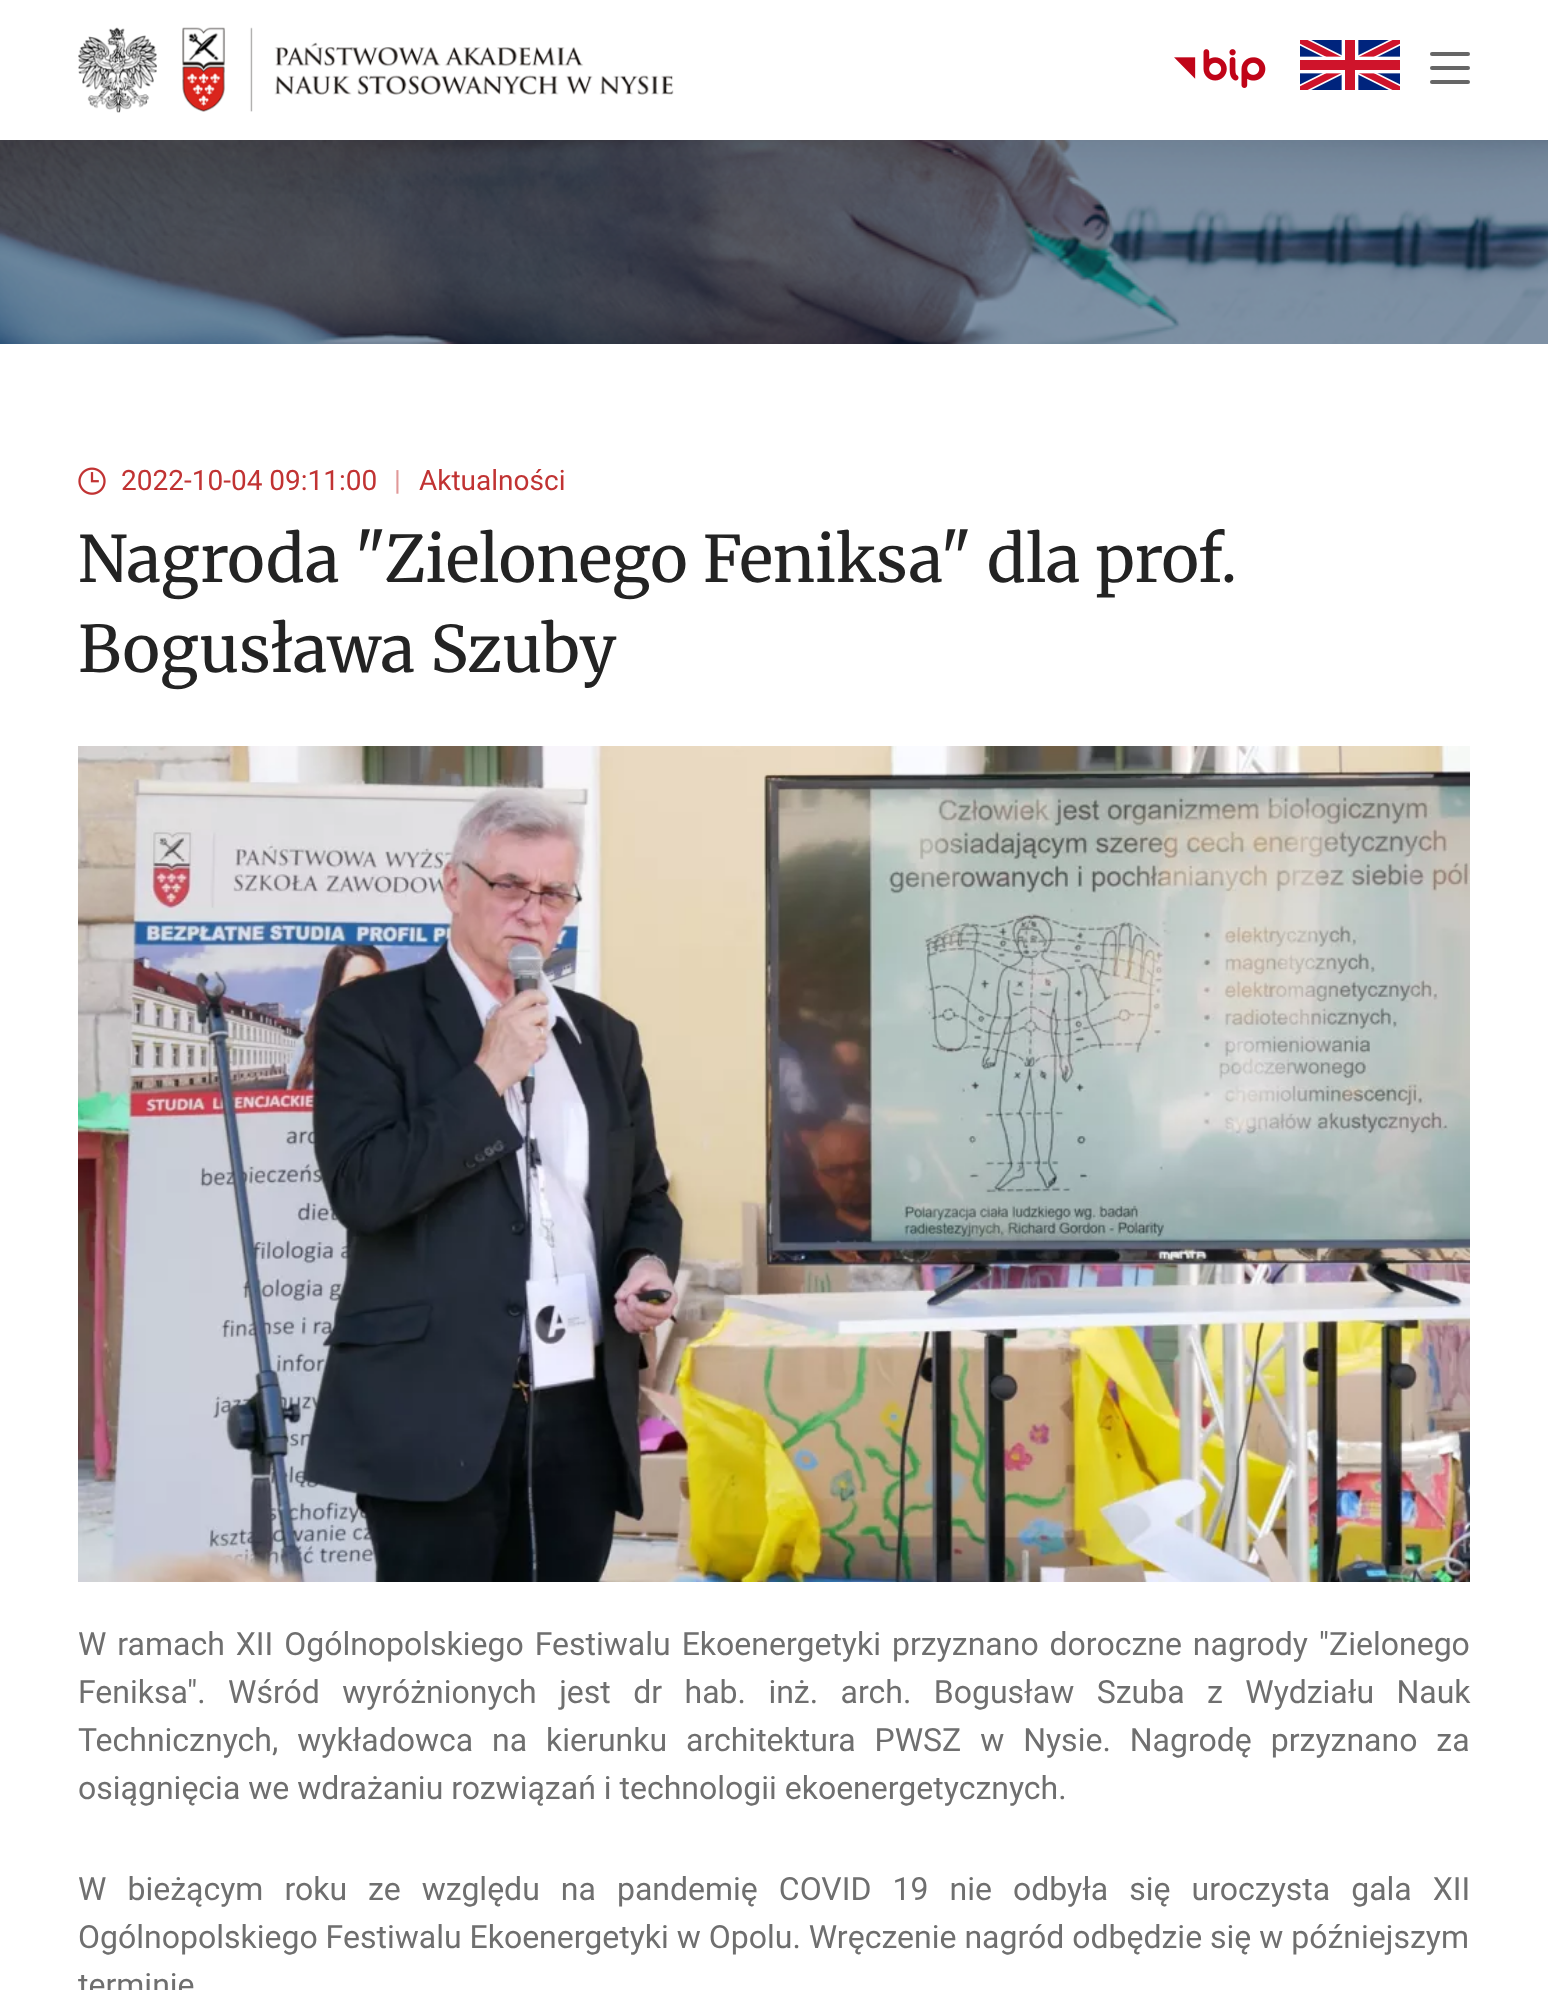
<svg xmlns="http://www.w3.org/2000/svg" width="1548" height="1990">
<style>
.a{font:28px Roboto;fill:#c13333}
.b{font:28px Roboto;fill:#e09999}
.c{font:64px Merriweather;fill:#232323}
.d{font:32px Roboto;fill:#6f6f6f}
</style>
<rect width="100%" height="100%" fill="#fff"/>
<image href="4.png" x="0" y="140" width="1548" height="204"/>
<path fill="#0000001a" filter="blur(50px)" d="M0 -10h1548v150H0z"/>
<path fill="#fff" d="M0 0h1548v140H0z"/>
<image href="1.png" x="78" y="27" width="596" height="86"/>
<image href="2.png" x="1174" y="49" width="92" height="39"/>
<image href="3.png" x="1300" y="40" width="100" height="50"/>
<rect fill="#666" x="1430" y="52" width="40" height="4" rx="2"/>
<rect fill="#666" x="1430" y="66" width="40" height="4" rx="2"/>
<rect fill="#666" x="1430" y="80" width="40" height="4" rx="2"/>
<image href="5.png" x="78" y="467" width="28" height="28"/>
<image href="6.png" x="78" y="746" width="1392" height="836"/>
<text class="a" x="121" y="490">2022-10-04 09:11:00</text>
<text class="b" x="394" y="490">|</text>
<text class="a" x="419" y="490">Aktualności</text>
<text class="c" x="78" y="582">Nagroda "Zielonego Feniksa" dla prof.</text>
<text class="c" x="78" y="672">Bogusława Szuby</text>
<text class="d" x="78" y="1655" word-spacing="3">W ramach XII Ogólnopolskiego Festiwalu Ekoenergetyki przyznano doroczne nagrody "Zielonego</text>
<text class="d" x="78" y="1703" word-spacing="14.5">Feniksa". Wśród wyróżnionych jest dr hab. inż. arch. Bogusław Szuba z Wydziału Nauk</text>
<text class="d" x="78" y="1751" word-spacing="11">Technicznych, wykładowca na kierunku architektura PWSZ w Nysie. Nagrodę przyznano za</text>
<text class="d" x="78" y="1799">osiągnięcia we wdrażaniu rozwiązań i technologii ekoenergetycznych.</text>
<text class="d" x="78" y="1900" word-spacing="13.1">W bieżącym roku ze względu na pandemię COVID 19 nie odbyła się uroczysta gala XII</text>
<text class="d" x="78" y="1948">Ogólnopolskiego Festiwalu Ekoenergetyki w Opolu. Wręczenie nagród odbędzie się w późniejszym</text>
<text class="d" x="78" y="1996">terminie</text>
</svg>
